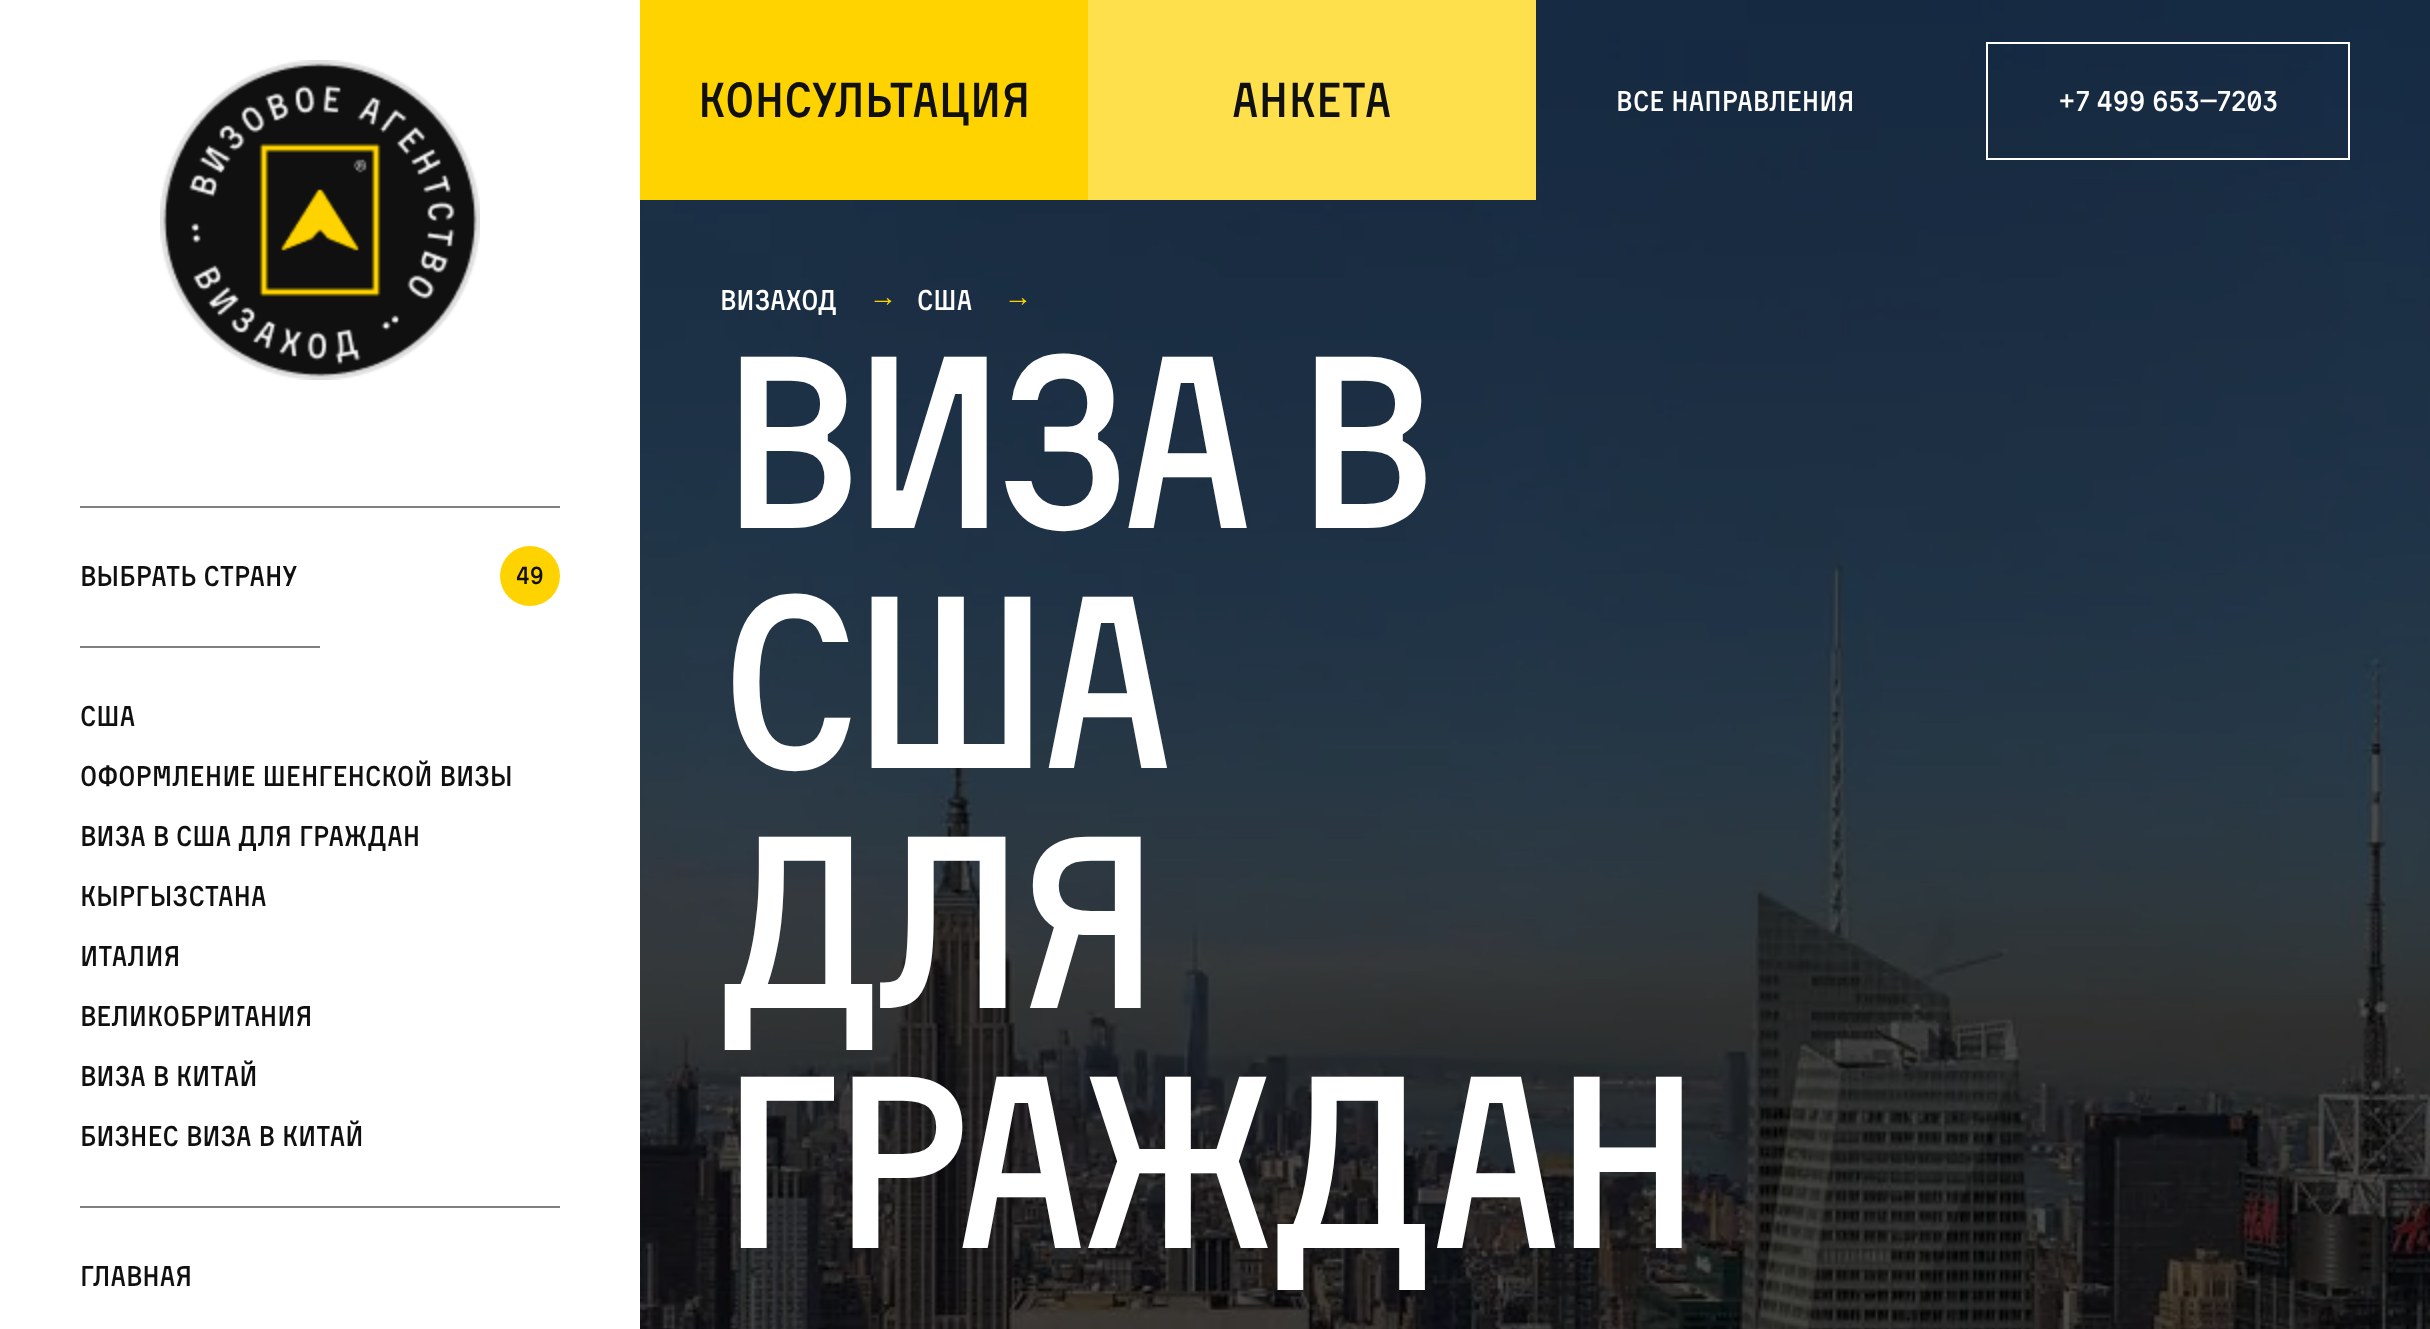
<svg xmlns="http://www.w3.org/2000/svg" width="2430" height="1329">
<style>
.a{font:48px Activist;fill:#101010}
.b{font:28px Activist;fill:#fff}
.c{font:28px Activist;fill:#101010}
.d{font:24px Activist;fill:#101010}
.e{font:28px Liberation Sans;fill:#ffd300}
.f{font:240px Activist;letter-spacing:-9.5px;fill:#fff}
</style>
<rect width="100%" height="100%" fill="#fff"/>
<image href="2.png" x="640" y="0" width="1790" height="1329"/>
<path fill="#ffd300" d="M640 0h448v200H640z"/>
<path fill="#fee04c" d="M1088 0h448v200H1088z"/>
<path fill="none" stroke="#fff" stroke-width="2" d="M1987 43h362v116H1987z"/>
<image href="1.png" x="160" y="60" width="320" height="320"/>
<path fill="#808080" d="M80 506h480v2H80z"/>
<circle fill="#ffd300" cx="530" cy="576" r="30"/>
<path fill="#808080" d="M80 646h240v2H80z"/>
<path fill="#808080" d="M80 1206h480v2H80z"/>
<text class="a" x="698" y="117">Консультация</text>
<text class="a" x="1232" y="117">Анкета</text>
<text class="b" x="1616" y="111">Все направления</text>
<text class="b" x="2058" y="111">+7 499 653—7203</text>
<text class="c" x="80" y="586">Выбрать страну</text>
<text class="d" x="516" y="584">49</text>
<text class="c" x="80" y="726">США</text>
<text class="c" x="80" y="786">Оформление шенгенской визы</text>
<text class="c" x="80" y="846">Виза в США для граждан</text>
<text class="c" x="80" y="906">Кыргызстана</text>
<text class="c" x="80" y="966">Италия</text>
<text class="c" x="80" y="1026">Великобритания</text>
<text class="c" x="80" y="1086">Виза в Китай</text>
<text class="c" x="80" y="1146">Бизнес виза в Китай</text>
<text class="c" x="80" y="1286">Главная</text>
<text class="b" x="720" y="310">Визаход</text>
<text class="e" x="869" y="306">→</text>
<text class="b" x="917" y="310">США</text>
<text class="e" x="1004" y="306">→</text>
<text class="f" x="720" y="528">Виза в</text>
<text class="f" x="720" y="768">США</text>
<text class="f" x="720" y="1008">для</text>
<text class="f" x="720" y="1248">граждан</text>
</svg>
